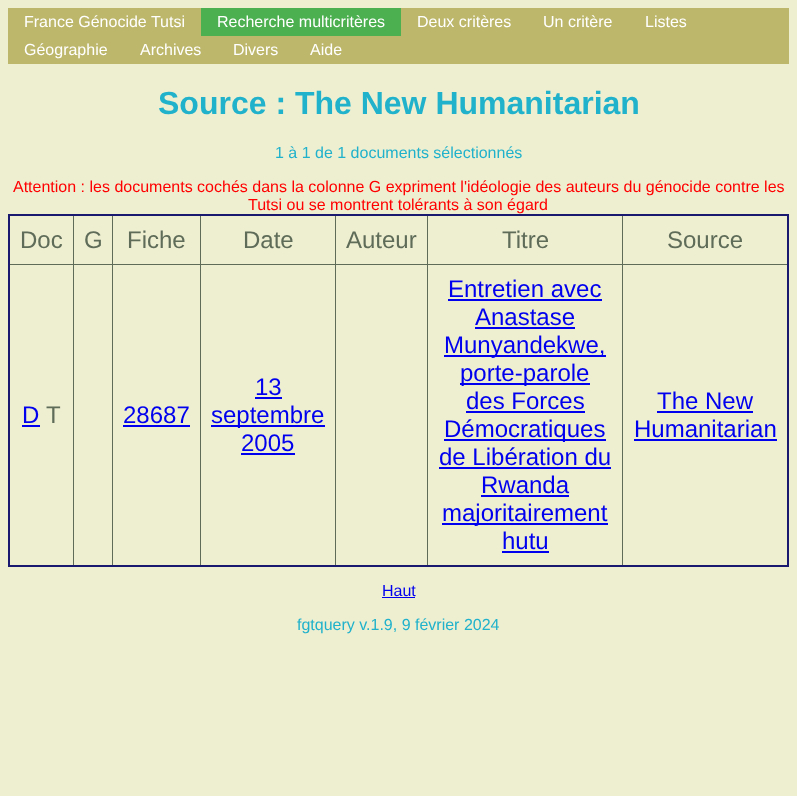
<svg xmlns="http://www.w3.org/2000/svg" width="797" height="796">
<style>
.a{font:16px Liberation Sans;fill:#fff}
.b{font:bold 32px Liberation Sans;fill:#20b2cb}
.c{font:16px Liberation Sans;fill:#20b2cb}
.d{font:16px Liberation Sans;fill:#f00}
.e{font:24px Liberation Sans;fill:#5e6c58}
.f{font:24px Liberation Sans;fill:#00e}
.g{font:16px Liberation Sans;fill:#00e}
</style>
<rect width="100%" height="100%" fill="#eeeed1"/>
<path fill="#bdb76b" d="M8 8h781v56H8z"/>
<path fill="#4caf50" d="M201 8h200v28H201z"/>
<path fill="#5e6c58" d="M9 264h780v1H9z"/>
<path fill="#5e6c58" d="M73 214h1v352H73z"/>
<path fill="#5e6c58" d="M112 214h1v352H112z"/>
<path fill="#5e6c58" d="M200 214h1v352H200z"/>
<path fill="#5e6c58" d="M335 214h1v352H335z"/>
<path fill="#5e6c58" d="M427 214h1v352H427z"/>
<path fill="#5e6c58" d="M622 214h1v352H622z"/>
<path fill="#191970" d="M8 214h781v2H8z"/>
<path fill="#191970" d="M787 214h2v353H787z"/>
<path fill="#191970" d="M8 565h781v2H8z"/>
<path fill="#191970" d="M8 214h2v353H8z"/>
<path fill="#00e" d="M22 425h18v2H22z"/>
<path fill="#00e" d="M123 425h67v2H123z"/>
<path fill="#00e" d="M255 397h27v2H255z"/>
<path fill="#00e" d="M211 425h114v2H211z"/>
<path fill="#00e" d="M241 453h54v2H241z"/>
<path fill="#00e" d="M448 299h154v2H448z"/>
<path fill="#00e" d="M475 327h100v2H475z"/>
<path fill="#00e" d="M444 355h162v2H444z"/>
<path fill="#00e" d="M460 383h130v2H460z"/>
<path fill="#00e" d="M466 411h119v2H466z"/>
<path fill="#00e" d="M444 439h162v2H444z"/>
<path fill="#00e" d="M439 467h172v2H439z"/>
<path fill="#00e" d="M481 495h88v2H481z"/>
<path fill="#00e" d="M442 523h166v2H442z"/>
<path fill="#00e" d="M502 551h47v2H502z"/>
<path fill="#00e" d="M657 411h96v2H657z"/>
<path fill="#00e" d="M634 439h143v2H634z"/>
<path fill="#00e" d="M382 597h33v1H382z"/>
<text class="a" x="24" y="27">France Génocide Tutsi</text>
<text class="a" x="217" y="27">Recherche multicritères</text>
<text class="a" x="417" y="27">Deux critères</text>
<text class="a" x="543" y="27">Un critère</text>
<text class="a" x="645" y="27">Listes</text>
<text class="a" x="24" y="55">Géographie</text>
<text class="a" x="140" y="55">Archives</text>
<text class="a" x="233" y="55">Divers</text>
<text class="a" x="310" y="55">Aide</text>
<text class="b" x="158" y="114">Source : The New Humanitarian</text>
<text class="c" x="275" y="158">1 à 1 de 1 documents sélectionnés</text>
<text class="d" x="13" y="192">Attention : les documents cochés dans la colonne G expriment l'idéologie des auteurs du génocide contre les</text>
<text class="d" x="248" y="210">Tutsi ou se montrent tolérants à son égard</text>
<text class="e" x="20" y="248">Doc</text>
<text class="e" x="84" y="248">G</text>
<text class="e" x="127" y="248">Fiche</text>
<text class="e" x="243" y="248">Date</text>
<text class="e" x="346" y="248">Auteur</text>
<text class="e" x="502" y="248">Titre</text>
<text class="e" x="667" y="248">Source</text>
<text class="f" x="22" y="423">D</text>
<text class="e" x="46" y="423">T</text>
<text class="f" x="123" y="423">28687</text>
<text class="f" x="255" y="395">13</text>
<text class="f" x="211" y="423">septembre</text>
<text class="f" x="241" y="451">2005</text>
<text class="f" x="448" y="297">Entretien avec</text>
<text class="f" x="475" y="325">Anastase</text>
<text class="f" x="444" y="353">Munyandekwe,</text>
<text class="f" x="460" y="381">porte-parole</text>
<text class="f" x="466" y="409">des Forces</text>
<text class="f" x="444" y="437">Démocratiques</text>
<text class="f" x="439" y="465">de Libération du</text>
<text class="f" x="481" y="493">Rwanda</text>
<text class="f" x="442" y="521">majoritairement</text>
<text class="f" x="502" y="549">hutu</text>
<text class="f" x="657" y="409">The New</text>
<text class="f" x="634" y="437">Humanitarian</text>
<text class="g" x="382" y="596">Haut</text>
<text class="c" x="297" y="630">fgtquery v.1.9, 9 février 2024</text>
</svg>
